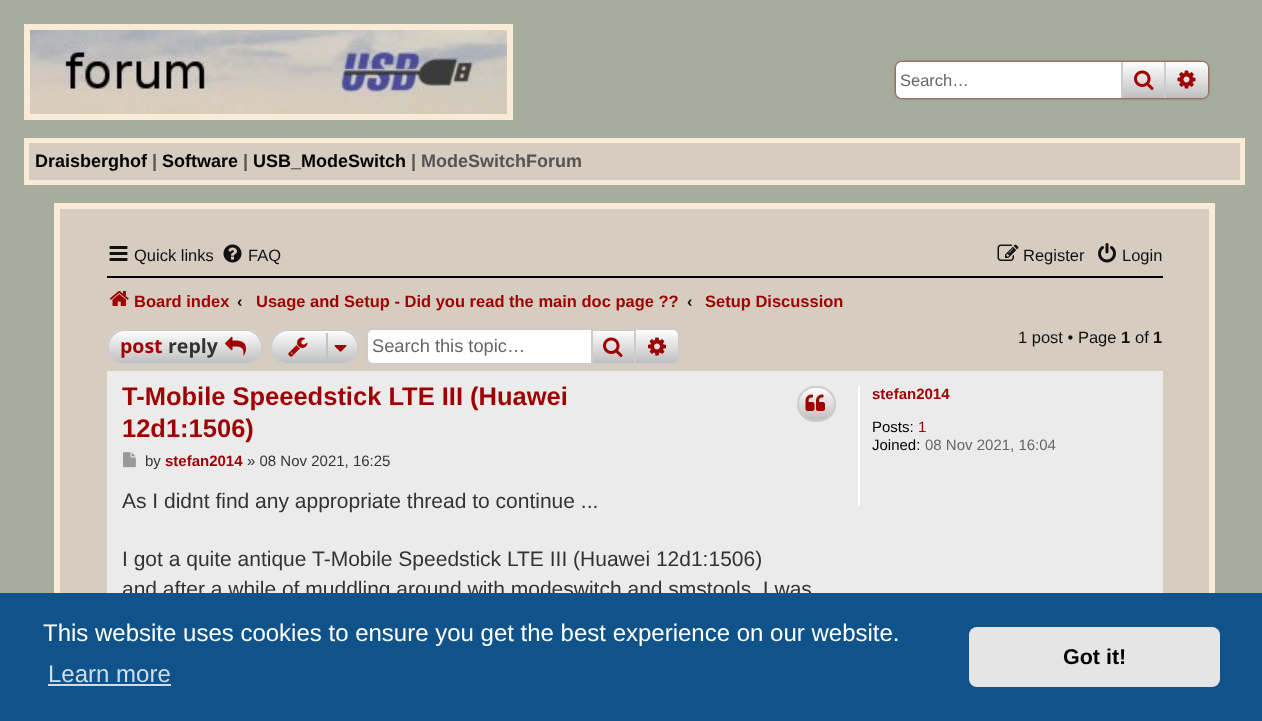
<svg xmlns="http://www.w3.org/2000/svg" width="1262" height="721">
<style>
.a{font:16.5px Liberation Sans;fill:#666}
.b{font:bold 18px Liberation Sans;fill:#000}
.c{font:bold 18px Liberation Sans;fill:#555}
.d{font:16.5px Liberation Sans;fill:#111}
.e{font:bold 16.5px Liberation Sans;fill:#9f0002}
.f{font:bold 16.5px Liberation Sans;fill:#111}
.g{font:bold 19.5px Open Sans;fill:#9f0002}
.h{font:bold 19.5px Open Sans;fill:#333}
.i{font:18.25px Liberation Sans;fill:#666}
.j{font:bold 25.5px Liberation Sans;fill:#9f0002}
.k{font:15px Liberation Sans;fill:#333}
.l{font:bold 15px Liberation Sans;fill:#9f0002}
.m{font:21px Liberation Sans;fill:#333}
.n{font:15px Liberation Sans;fill:#000}
.o{font:15px Liberation Sans;fill:#9f0002}
.p{font:15px Liberation Sans;fill:#666}
.q{font:24px Liberation Sans;fill:#fff}
.r{font:24px Liberation Sans;fill:#cfdde8}
.s{font:bold 21.5px Liberation Sans;fill:#000}
</style>
<defs>
<linearGradient id="g1" gradientUnits="userSpaceOnUse" x1="1143" y1="62" x2="1143" y2="98"><stop offset="0" stop-color="#fff"/><stop offset="1" stop-color="#bfbfbf"/></linearGradient>
<linearGradient id="g2" gradientUnits="userSpaceOnUse" x1="1187" y1="62" x2="1187" y2="98"><stop offset="0" stop-color="#fff"/><stop offset="1" stop-color="#bfbfbf"/></linearGradient>
<clipPath id="clip1"><rect x="107" y="329" width="156" height="36" rx="18"/></clipPath>
<linearGradient id="g3" gradientUnits="userSpaceOnUse" x1="185" y1="330" x2="185" y2="363"><stop offset="0" stop-color="#fff"/><stop offset="1" stop-color="#bfbfbf"/></linearGradient>
<clipPath id="clip2"><rect x="270" y="329" width="89" height="36" rx="18"/></clipPath>
<linearGradient id="g4" gradientUnits="userSpaceOnUse" x1="314" y1="330" x2="314" y2="363"><stop offset="0" stop-color="#fff"/><stop offset="1" stop-color="#bfbfbf"/></linearGradient>
<linearGradient id="g5" gradientUnits="userSpaceOnUse" x1="614" y1="330" x2="614" y2="363"><stop offset="0" stop-color="#fff"/><stop offset="1" stop-color="#bfbfbf"/></linearGradient>
<linearGradient id="g6" gradientUnits="userSpaceOnUse" x1="657" y1="330" x2="657" y2="363"><stop offset="0" stop-color="#fff"/><stop offset="1" stop-color="#bfbfbf"/></linearGradient>
<clipPath id="clip3"><rect x="797" y="386" width="39" height="36" rx="18"/></clipPath>
<linearGradient id="g7" gradientUnits="userSpaceOnUse" x1="816" y1="387" x2="816" y2="420"><stop offset="0" stop-color="#fff"/><stop offset="1" stop-color="#bfbfbf"/></linearGradient>
</defs>
<rect width="100%" height="100%" fill="#a7ad9c"/>
<path fill="none" stroke="#faebd7" stroke-width="6" d="M27 27h483v90H27z"/>
<image href="1.png" x="30" y="30" width="477" height="84"/>
<rect fill="#760000" filter="blur(1.5px)" x="896" y="62" width="312" height="36" rx="6"/>
<path fill="#fff" d="M902 62h219v36h-219c-3.5 0-6-2.5-6-6v-24c0-3.5 2.5-6 6-6z"/>
<path fill="url(#g1)" d="M1123 62h41v36H1123z"/>
<path fill="#ccc" d="M1164 62h2v36H1164z"/>
<path fill="#ccc" d="M1121 62h2v36H1121z"/>
<image href="2.png" x="1134" y="70" width="20" height="20"/>
<path fill="url(#g2)" d="M1166 62h36c3.5 0 6 2.5 6 6v24c0 3.5-2.5 6-6 6h-36z"/>
<image href="3.png" x="1177" y="70" width="19" height="19"/>
<path fill="#d6ccc0" stroke="#faebd7" stroke-width="5" d="M26.5 140.5h1216v42H26.5z"/>
<path fill="#d6ccc0" d="M60 209h1149v384H60z"/>
<path fill="#faebd7" d="M54 203h1161v6H54z"/>
<path fill="#faebd7" d="M1209 203h6v390H1209z"/>
<path fill="#faebd7" d="M54 203h6v390H54z"/>
<image href="4.png" x="109" y="246" width="19" height="15"/>
<image href="5.png" x="223" y="244" width="19" height="19"/>
<image href="6.png" x="997" y="244" width="22" height="17"/>
<image href="7.png" x="1098" y="243" width="18" height="20"/>
<path fill="#000" d="M107 276h1056v2H107z"/>
<image href="8.png" x="109" y="291" width="20" height="15"/>
<g clip-path="url(#clip1)">
<path fill="url(#g3)" d="M107 330h156v33H107z"/>
</g>
<rect fill="none" stroke="#ccc" stroke-width="2" x="108" y="330" width="154" height="34" rx="17"/>
<image href="9.png" x="225" y="336" width="21" height="20"/>
<g clip-path="url(#clip2)">
<path fill="url(#g4)" d="M270 330h89v33H270z"/>
</g>
<rect fill="none" stroke="#ccc" stroke-width="2" x="271" y="330" width="87" height="34" rx="17"/>
<image href="10.png" x="288" y="337" width="20" height="20"/>
<path fill="#c7c3bf" d="M326 333h2v27H326z"/>
<image href="11.png" x="334" y="345" width="13" height="7"/>
<path fill="#fff" d="M373 330h218v33h-218c-3 0-5-2-5-5v-23c0-3 2-5 5-5z"/>
<path fill="#ccc" fill-rule="evenodd" d="M372 328h219v36h-219c-3 0-6-2-6-6v-24c0-3 3-6 6-6zm0 2h219v33h-219c-2 0-4-2-4-5v-24c0-2 2-4 4-4z"/>
<path fill="url(#g5)" d="M593 331h41v32H593z"/>
<path fill="none" stroke="#ccc" stroke-width="2" d="M592 330h43v34H592z"/>
<image href="12.png" x="603" y="337" width="20" height="20"/>
<path fill="url(#g6)" d="M636 330h37c3 0 5 2 5 5v23c0 3-2 5-5 5h-37z"/>
<path fill="#ccc" fill-rule="evenodd" d="M636 328h38c3 0 6 3 6 6v24c0 4-3 6-6 6h-38zm0 2h38c2 0 4 2 4 4v24c0 3-2 5-4 5h-38z"/>
<image href="13.png" x="648" y="337" width="18" height="19"/>
<path fill="#ebebeb" d="M107 371h1056v222H107z"/>
<g clip-path="url(#clip3)">
<path fill="url(#g7)" d="M797 387h39v33H797z"/>
</g>
<rect fill="none" stroke="#ccc" stroke-width="2" x="798" y="387" width="37" height="34" rx="17"/>
<image href="14.png" x="805" y="394" width="20" height="17"/>
<image href="15.png" x="123" y="452" width="13" height="16"/>
<path fill="#fff" d="M858 386h2v120H858z"/>
<text class="a" x="900" y="86">Search…</text>
<text class="b" x="35" y="167">Draisberghof</text>
<text class="c" x="152" y="167">|</text>
<text class="b" x="162" y="167">Software</text>
<text class="c" x="243" y="167">|</text>
<text class="b" x="253" y="167">USB_ModeSwitch</text>
<text class="c" x="411" y="167">| ModeSwitchForum</text>
<text class="d" x="134" y="261">Quick links</text>
<text class="d" x="248" y="261">FAQ</text>
<text class="d" x="1023" y="261">Register</text>
<text class="d" x="1122" y="261">Login</text>
<text class="e" x="134" y="307">Board index</text>
<text class="f" x="237" y="307">‹</text>
<text class="e" x="256" y="307">Usage and Setup - Did you read the main doc page ??</text>
<text class="f" x="687" y="307">‹</text>
<text class="e" x="705" y="307">Setup Discussion</text>
<text class="g" x="120" y="353">post</text>
<text class="h" x="168" y="353">reply</text>
<text class="i" x="372" y="352">Search this topic…</text>
<text class="d" x="1018" y="343">1 post • Page</text>
<text class="f" x="1121" y="343">1</text>
<text class="d" x="1135" y="343">of</text>
<text class="f" x="1153" y="343">1</text>
<text class="j" x="122" y="405">T-Mobile Speeedstick LTE III (Huawei</text>
<text class="j" x="122" y="437">12d1:1506)</text>
<text class="k" x="145" y="466">by</text>
<text class="l" x="165" y="466">stefan2014</text>
<text class="k" x="247" y="466">» 08 Nov 2021, 16:25</text>
<text class="m" x="122" y="508">As I didnt find any appropriate thread to continue ...</text>
<text class="m" x="122" y="566">I got a quite antique</text>
<text class="m" x="312" y="566">T-Mobile Speedstick LTE III (Huawei 12d1:1506)</text>
<text class="m" x="122" y="596">and after a while of muddling around with modeswitch and smstools, I was</text>
<text class="l" x="872" y="399">stefan2014</text>
<text class="n" x="872" y="432">Posts:</text>
<text class="o" x="918" y="432">1</text>
<text class="n" x="872" y="450">Joined:</text>
<text class="p" x="925" y="450">08 Nov 2021, 16:04</text>
<path fill="#0f538a" d="M0 593h1262v128H0z"/>
<text class="q" x="43" y="641">This website uses cookies to ensure you get the best experience on our website.</text>
<text class="r" x="48" y="682">Learn more</text>
<path fill="#cfdde8" d="M48 684h123v2H48z"/>
<rect fill="#e5e5e5" x="969" y="627" width="251" height="60" rx="8"/>
<text class="s" x="1063" y="664">Got it!</text>
</svg>
